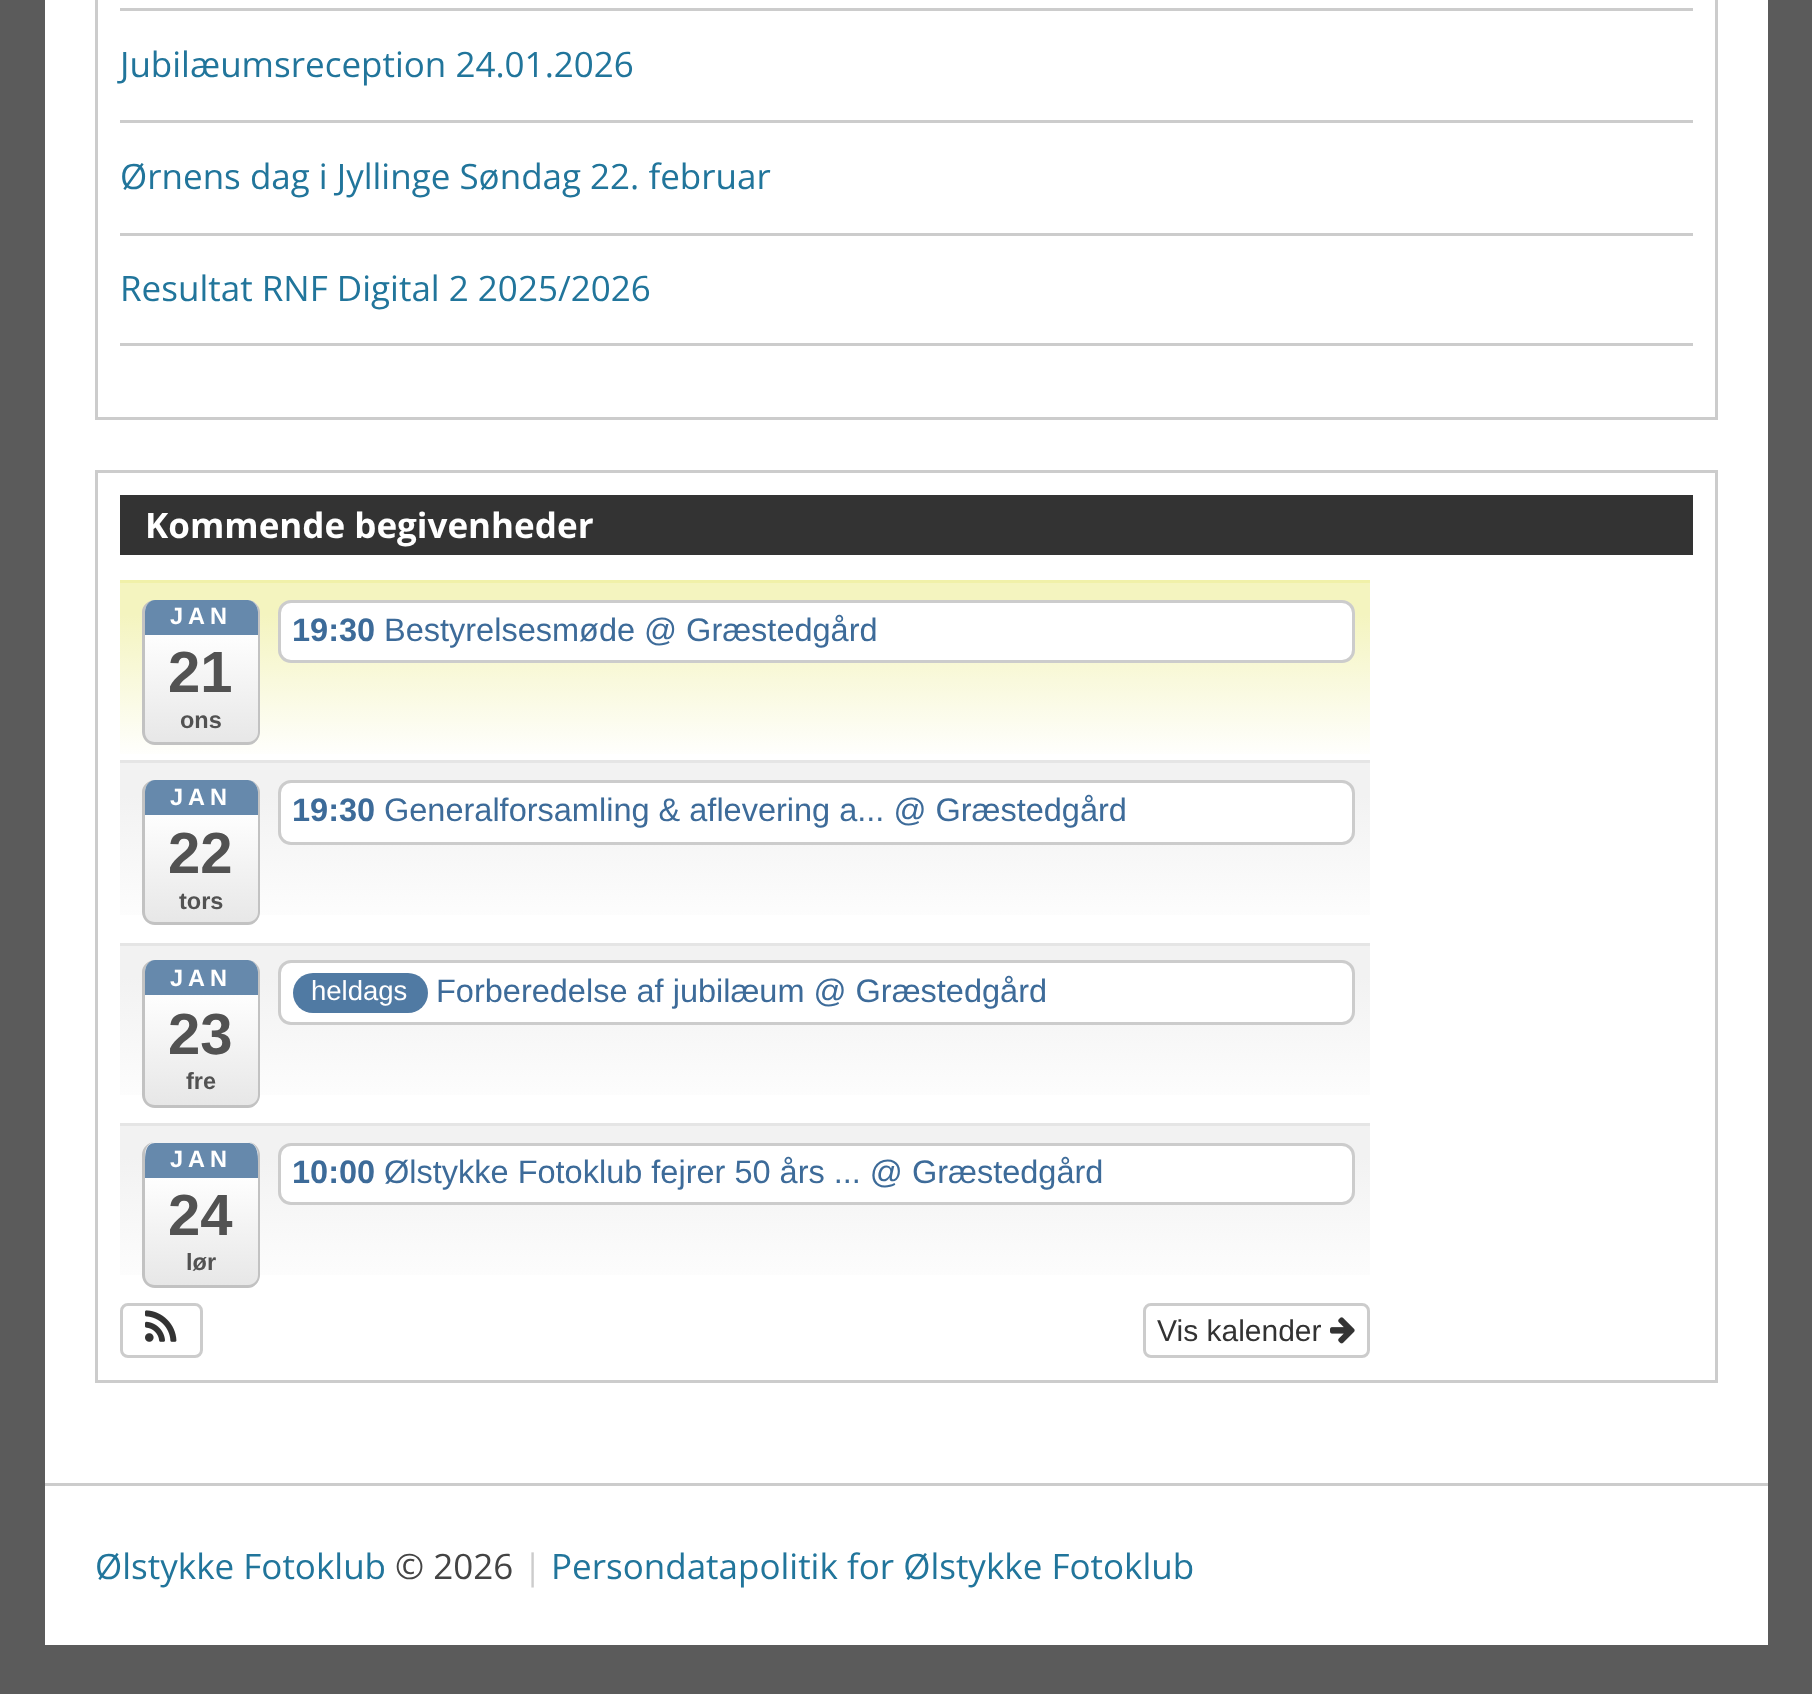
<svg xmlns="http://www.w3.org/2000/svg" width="1812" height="1694">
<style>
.a{font:35px Open Sans;fill:#21759b}
.b{font:bold 35px Open Sans;fill:#fff}
.c{font:bold 23.5px Liberation Sans;letter-spacing:5px;fill:#fff}
.d{font:bold 58px Liberation Sans;fill:#525252}
.e{font:bold 23.5px Liberation Sans;fill:#525252}
.f{font:bold 32.5px Liberation Sans;fill:#3d6b99}
.g{font:32.5px Liberation Sans;fill:#3d6b99}
.h{font:27.5px Liberation Sans;fill:#fff}
.i{font:30px Liberation Sans;fill:#333}
.j{font:35px Open Sans;fill:#444}
.k{font:35px Open Sans;fill:#ccc}
</style>
<defs>
<linearGradient id="g1" gradientUnits="userSpaceOnUse" x1="745" y1="582" x2="745" y2="760"><stop offset="0" stop-color="#f4f4bf"/><stop offset="0.18" stop-color="#f4f4bf"/><stop offset="1" stop-color="#fff"/></linearGradient>
<clipPath id="clip1"><rect x="143" y="600" width="117" height="145" rx="13"/></clipPath>
<linearGradient id="g2" gradientUnits="userSpaceOnUse" x1="201" y1="600" x2="201" y2="743"><stop offset="0" stop-color="#fff"/><stop offset="0.21" stop-color="#fff"/><stop offset="1" stop-color="#e7e7e7"/></linearGradient>
<linearGradient id="g3" gradientUnits="userSpaceOnUse" x1="745" y1="763" x2="745" y2="943"><stop offset="0" stop-color="#f2f2f2"/><stop offset="0.18" stop-color="#f2f2f2"/><stop offset="1" stop-color="#fff"/></linearGradient>
<clipPath id="clip2"><rect x="143" y="780" width="117" height="145" rx="13"/></clipPath>
<linearGradient id="g4" gradientUnits="userSpaceOnUse" x1="201" y1="780" x2="201" y2="923"><stop offset="0" stop-color="#fff"/><stop offset="0.21" stop-color="#fff"/><stop offset="1" stop-color="#e7e7e7"/></linearGradient>
<linearGradient id="g5" gradientUnits="userSpaceOnUse" x1="745" y1="945" x2="745" y2="1123"><stop offset="0" stop-color="#f2f2f2"/><stop offset="0.18" stop-color="#f2f2f2"/><stop offset="1" stop-color="#fff"/></linearGradient>
<clipPath id="clip3"><rect x="143" y="960" width="117" height="148" rx="13"/></clipPath>
<linearGradient id="g6" gradientUnits="userSpaceOnUse" x1="201" y1="960" x2="201" y2="1105"><stop offset="0" stop-color="#fff"/><stop offset="0.2" stop-color="#fff"/><stop offset="1" stop-color="#e7e7e7"/></linearGradient>
<linearGradient id="g7" gradientUnits="userSpaceOnUse" x1="745" y1="1125" x2="745" y2="1303"><stop offset="0" stop-color="#f2f2f2"/><stop offset="0.18" stop-color="#f2f2f2"/><stop offset="1" stop-color="#fff"/></linearGradient>
<clipPath id="clip4"><rect x="143" y="1143" width="117" height="145" rx="13"/></clipPath>
<linearGradient id="g8" gradientUnits="userSpaceOnUse" x1="201" y1="1143" x2="201" y2="1285"><stop offset="0" stop-color="#fff"/><stop offset="0.21" stop-color="#fff"/><stop offset="1" stop-color="#e7e7e7"/></linearGradient>
</defs>
<rect width="100%" height="100%" fill="#5b5b5b"/>
<path fill="#fff" d="M45 0h1723v1645H45z"/>
<path fill="none" stroke="#ccc" stroke-width="3" d="M96.5 -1.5h1620v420H96.5z"/>
<path fill="#ccc" d="M120 8h1573v3H120z"/>
<path fill="#ccc" d="M120 120h1573v3H120z"/>
<path fill="#ccc" d="M120 233h1573v3H120z"/>
<path fill="#ccc" d="M120 343h1573v3H120z"/>
<path fill="none" stroke="#ccc" stroke-width="3" d="M96.5 471.5h1620v910H96.5z"/>
<path fill="#333" d="M120 495h1573v60H120z"/>
<path fill="url(#g1)" d="M120 583h1250v171H120z"/>
<path fill="#f0f0a9" d="M120 580h1250v3H120z"/>
<g clip-path="url(#clip1)">
<path fill="url(#g2)" d="M145 600h113v143H145z"/>
</g>
<path fill="#c2c2c2" fill-rule="evenodd" d="M155 600h93c6 0 12 6 12 12v120c0 7-6 13-12 13h-93c-7 0-13-6-13-13v-120c0-6 6-12 13-12zm0 0h93c5 0 10 6 10 12v120c0 6-5 10-10 10h-93c-6 0-10-4-10-10v-120c0-6 4-12 10-12z"/>
<path fill="#6689ac" d="M155 600c-6 0-10 6-10 12v23h113v-23c0-6-5-12-10-12z"/>
<rect fill="#fff" stroke="#ccc" stroke-width="3" x="279.5" y="601.5" width="1074" height="60" rx="11.5"/>
<path fill="url(#g3)" d="M120 763h1250v152H120z"/>
<path fill="#e5e5e5" d="M120 760h1250v3H120z"/>
<g clip-path="url(#clip2)">
<path fill="url(#g4)" d="M145 780h113v143H145z"/>
</g>
<path fill="#c2c2c2" fill-rule="evenodd" d="M155 780h93c6 0 12 6 12 12v120c0 7-6 13-12 13h-93c-7 0-13-6-13-13v-120c0-6 6-12 13-12zm0 0h93c5 0 10 6 10 12v120c0 6-5 10-10 10h-93c-6 0-10-4-10-10v-120c0-6 4-12 10-12z"/>
<path fill="#6689ac" d="M155 780c-6 0-10 6-10 12v23h113v-23c0-6-5-12-10-12z"/>
<rect fill="#fff" stroke="#ccc" stroke-width="3" x="279.5" y="781.5" width="1074" height="62" rx="11.5"/>
<path fill="url(#g5)" d="M120 946h1250v149H120z"/>
<path fill="#e5e5e5" d="M120 943h1250v3H120z"/>
<g clip-path="url(#clip3)">
<path fill="url(#g6)" d="M145 960h113v145H145z"/>
</g>
<path fill="#c2c2c2" fill-rule="evenodd" d="M155 960h93c6 0 12 6 12 12v123c0 7-6 13-12 13h-93c-7 0-13-6-13-13v-123c0-6 6-12 13-12zm0 0h93c5 0 10 6 10 12v123c0 6-5 10-10 10h-93c-6 0-10-4-10-10v-123c0-6 4-12 10-12z"/>
<path fill="#6689ac" d="M155 960c-6 0-10 6-10 12v23h113v-23c0-6-5-12-10-12z"/>
<rect fill="#fff" stroke="#ccc" stroke-width="3" x="279.5" y="961.5" width="1074" height="62" rx="11.5"/>
<rect fill="#507aa3" x="293" y="973" width="135" height="40" rx="20"/>
<path fill="url(#g7)" d="M120 1126h1250v149H120z"/>
<path fill="#e5e5e5" d="M120 1123h1250v3H120z"/>
<g clip-path="url(#clip4)">
<path fill="url(#g8)" d="M145 1143h113v142H145z"/>
</g>
<path fill="#c2c2c2" fill-rule="evenodd" d="M155 1142h93c6 0 12 6 12 13v120c0 7-6 13-12 13h-93c-7 0-13-6-13-13v-120c0-7 6-13 13-13zm0 0h93c5 0 10 6 10 13v120c0 6-5 10-10 10h-93c-6 0-10-4-10-10v-120c0-7 4-13 10-13z"/>
<path fill="#6689ac" d="M155 1143c-10 0-10 12-10 20v15h113v-15c0-7 0-20-10-20z"/>
<rect fill="#fff" stroke="#ccc" stroke-width="3" x="279.5" y="1144.5" width="1074" height="59" rx="11.5"/>
<rect fill="none" stroke="#ccc" stroke-width="3" x="121.5" y="1304.5" width="80" height="52" rx="6.5"/>
<image href="1.png" x="145" y="1310" width="32" height="32"/>
<rect fill="none" stroke="#ccc" stroke-width="3" x="1144.5" y="1304.5" width="224" height="52" rx="6.5"/>
<image href="2.png" x="1330" y="1317" width="25" height="27"/>
<path fill="#ccc" d="M45 1483h1723v3H45z"/>
<text class="a" x="120" y="77">Jubilæumsreception 24.01.2026</text>
<text class="a" x="120" y="189">Ørnens dag i Jyllinge Søndag 22. februar</text>
<text class="a" x="120" y="301">Resultat RNF Digital 2 2025/2026</text>
<text class="b" x="145" y="538">Kommende begivenheder</text>
<text class="c" x="170" y="624">JAN</text>
<text class="d" x="168" y="692">21</text>
<text class="e" x="180" y="728">ons</text>
<text class="f" x="292" y="641">19:30</text>
<text class="g" x="384" y="641">Bestyrelsesmøde @ Græstedgård</text>
<text class="c" x="170" y="805">JAN</text>
<text class="d" x="168" y="873">22</text>
<text class="e" x="179" y="909">tors</text>
<text class="f" x="292" y="821">19:30</text>
<text class="g" x="384" y="821">Generalforsamling &amp; aflevering a... @ Græstedgård</text>
<text class="c" x="170" y="986">JAN</text>
<text class="d" x="168" y="1054">23</text>
<text class="e" x="186" y="1089">fre</text>
<text class="h" x="311" y="1000">heldags</text>
<text class="g" x="436" y="1002">Forberedelse af jubilæum @ Græstedgård</text>
<text class="c" x="170" y="1167">JAN</text>
<text class="d" x="168" y="1235">24</text>
<text class="e" x="186" y="1270">lør</text>
<text class="f" x="292" y="1183">10:00</text>
<text class="g" x="384" y="1183">Ølstykke Fotoklub fejrer 50 års ... @ Græstedgård</text>
<text class="i" x="1157" y="1341">Vis kalender</text>
<text class="a" x="95" y="1579">Ølstykke Fotoklub</text>
<text class="j" x="395" y="1579">© 2026</text>
<text class="k" x="523" y="1579">|</text>
<text class="a" x="551" y="1579">Persondatapolitik for Ølstykke Fotoklub</text>
</svg>
